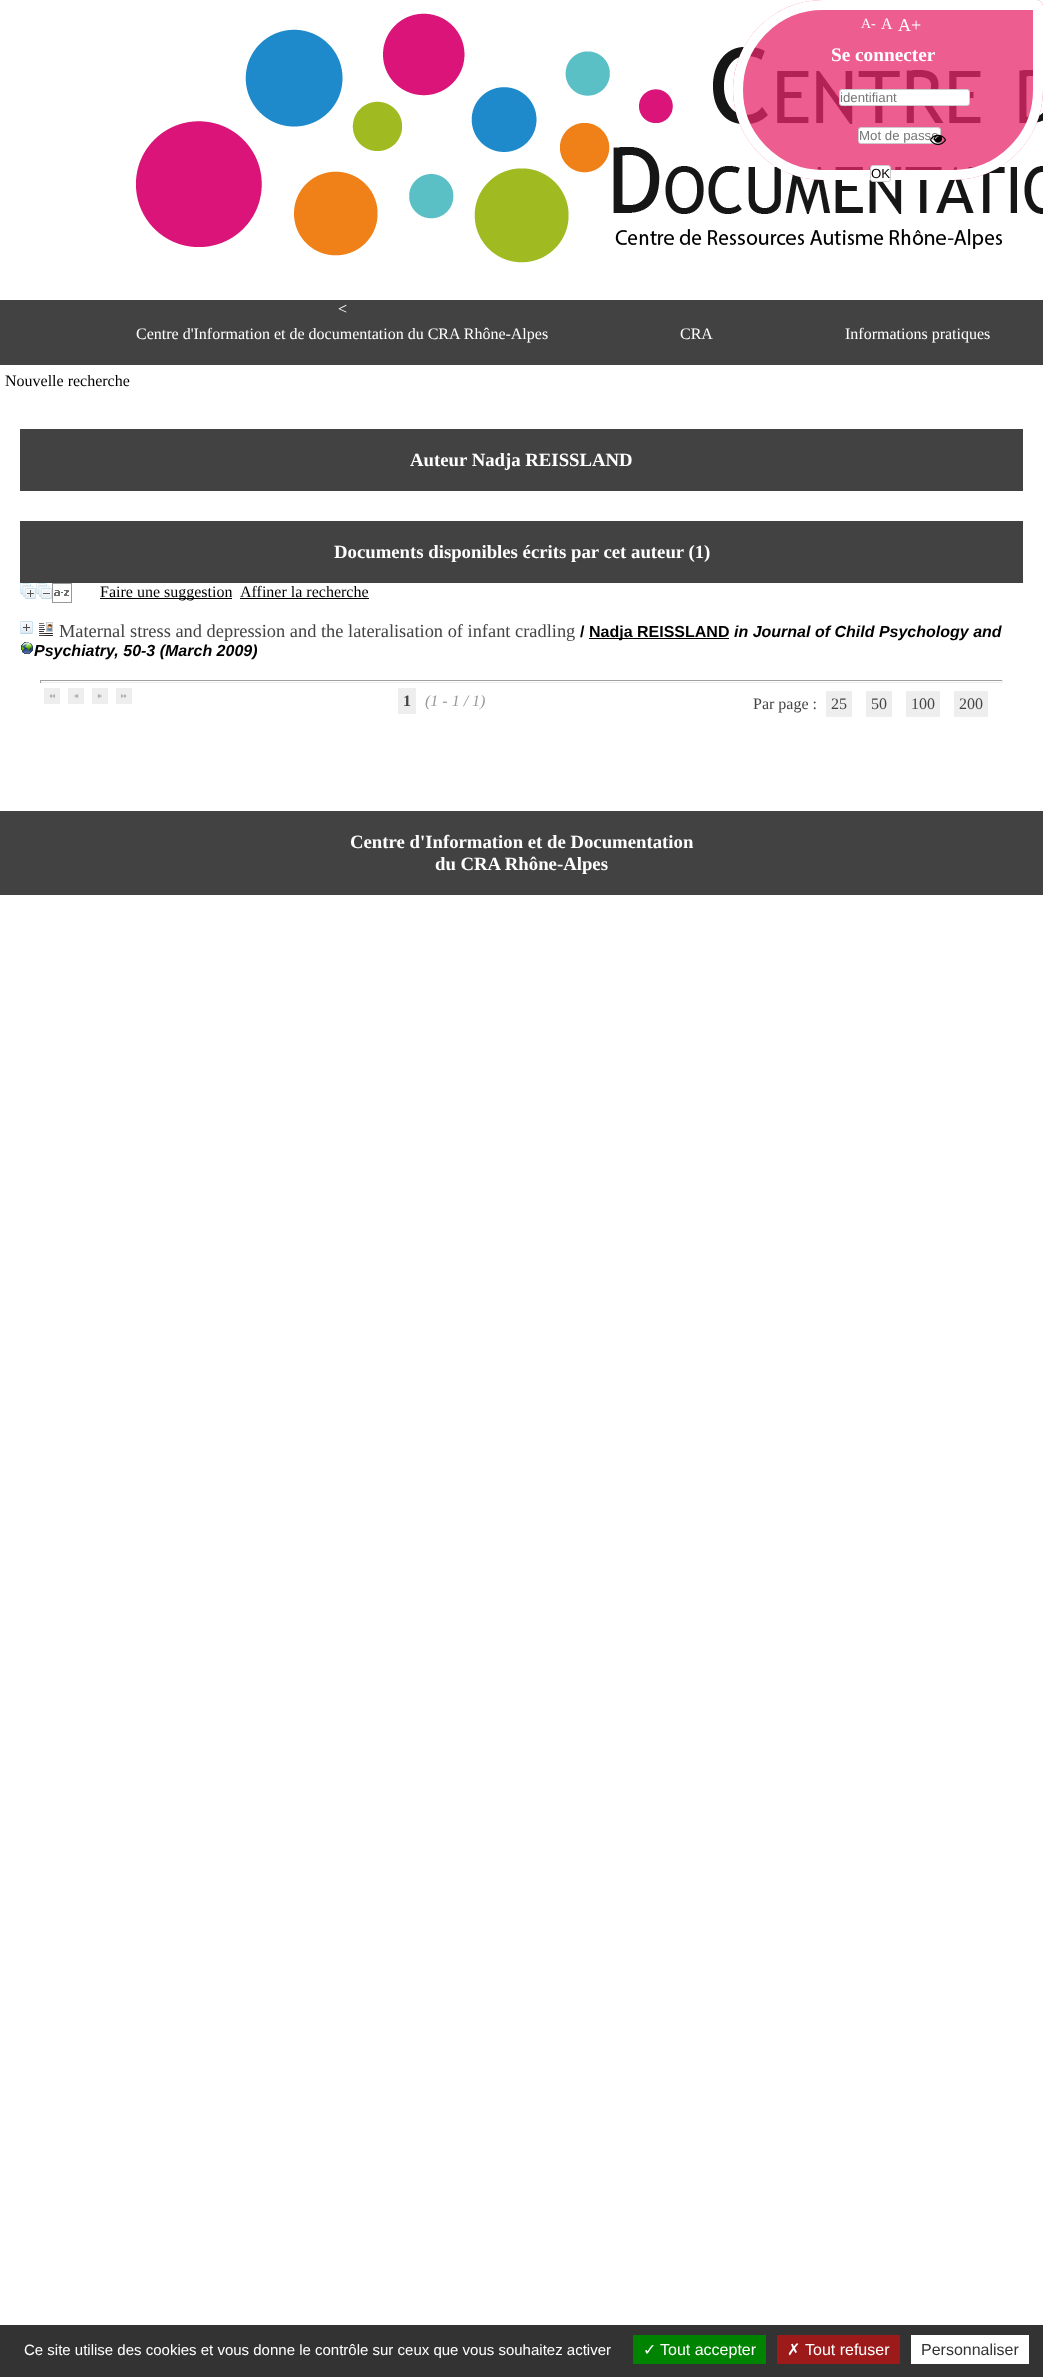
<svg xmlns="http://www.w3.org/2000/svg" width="1043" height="2377">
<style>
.a{font:14px Liberation Serif;fill:#fff}
.b{font:16px Liberation Serif;fill:#fff}
.c{font:18px Liberation Serif;fill:#fff}
.d{font:bold 19.25px Liberation Serif;fill:#fff}
.e{font:13.25px Liberation Sans;fill:#757575}
.f{font:13.25px Liberation Sans;fill:#000}
.g{font:16px Liberation Serif;fill:#000}
.h{font:bold 18.75px Liberation Serif;fill:#fff}
.i{font:18.4px Liberation Serif;fill:#444}
.j{font:bold 16px Liberation Sans;fill:#000}
.k{font:italic bold 16px Liberation Sans;fill:#000}
.l{font:bold 16px Liberation Serif;fill:#444}
.m{font:italic 16px Liberation Serif;fill:#999}
.n{font:16px Liberation Serif;fill:#444}
.o{font:15px Liberation Sans;fill:#fff}
.p{font:16px DejaVu Sans;fill:#fff}
.q{font:16px Liberation Sans;fill:#fff}
.r{font:16px Liberation Sans;fill:#333}
</style>
<rect width="100%" height="100%" fill="#fff"/>
<image href="3.png" x="136" y="13" width="907" height="250"/>
<image href="1.png" x="733" y="0" width="310" height="180"/>
<path fill="none" stroke="#fff" stroke-width="10" d="M823 5h214c.5 0 1 .5 1 1v84c0 47-38 85-85 85h-130c-47 0-85-38-85-85c0-47 38-85 85-85z"/>
<rect fill="#fff" stroke="#ccc" x="839.5" y="89.5" width="130" height="16" rx="2.5"/>
<rect fill="#fff" stroke="#ccc" x="858.5" y="127.5" width="82" height="16" rx="2.5"/>
<rect fill="#fff" stroke="#ccc" x="870.5" y="165.5" width="20" height="16" rx="2.5"/>
<path fill="#424242" d="M0 300h1043v65H0z"/>
<path fill="#424242" d="M20 429h1003v62H20z"/>
<path fill="#424242" d="M20 521h1003v62H20z"/>
<image href="4.png" x="20" y="583" width="16" height="16"/>
<image href="5.png" x="36" y="583" width="16" height="16"/>
<image href="6.png" x="52" y="583" width="20" height="20"/>
<path fill="#000" d="M100 598h132v1H100z"/>
<path fill="#000" d="M240 598h129v1H240z"/>
<image href="7.png" x="20" y="621" width="13" height="13"/>
<image href="8.png" x="39" y="622" width="14" height="14"/>
<path fill="#000" d="M589 638h140v1H589z"/>
<image href="9.png" x="21" y="642" width="12" height="12"/>
<path fill="#9f9f9f" d="M40 680h963v1H40z"/>
<path fill="#eee" d="M1002 680h1v3H1002z"/>
<path fill="#eee" d="M40 682h963v1H40z"/>
<path fill="#9f9f9f" d="M40 680h1v3H40z"/>
<path fill="#eee" d="M44 688h16v16H44z"/>
<image href="10.png" x="49" y="694" width="6" height="5"/>
<path fill="#eee" d="M68 688h16v16H68z"/>
<image href="11.png" x="74" y="694" width="5" height="5"/>
<path fill="#eee" d="M92 688h16v16H92z"/>
<image href="12.png" x="97" y="694" width="5" height="5"/>
<path fill="#eee" d="M116 688h16v16H116z"/>
<image href="13.png" x="121" y="694" width="6" height="5"/>
<path fill="#eee" d="M398 688h18v26H398z"/>
<path fill="#eee" d="M826 691h26v26H826z"/>
<path fill="#eee" d="M866 691h26v26H866z"/>
<path fill="#eee" d="M906 691h34v26H906z"/>
<path fill="#eee" d="M954 691h34v26H954z"/>
<path fill="#424242" d="M0 811h1043v84H0z"/>
<path fill="#333" d="M0 2325h1043v52H0z"/>
<path fill="#008300" d="M633 2335h133v29H633z"/>
<path fill="#9c1a1a" d="M777 2335h123v29H777z"/>
<path fill="#fff" d="M911 2335h118v29H911z"/>
<text class="a" x="861" y="28">A-</text>
<text class="b" x="881" y="29">A</text>
<text class="c" x="898" y="31">A+</text>
<text class="d" x="831" y="61">Se connecter</text>
<text class="e" x="840" y="102">identifiant</text>
<text class="e" x="859" y="140">Mot de passe</text>
<image href="2.png" x="930" y="134" width="16" height="11"/>
<text class="f" x="871" y="178">OK</text>
<text class="b" x="338" y="314">&lt;</text>
<text class="b" x="136" y="339">Centre d'Information et de documentation du CRA Rhône-Alpes</text>
<text class="b" x="680" y="339">CRA</text>
<text class="b" x="845" y="339">Informations pratiques</text>
<text class="g" x="5" y="386">Nouvelle recherche</text>
<text class="h" x="410" y="466">Auteur Nadja REISSLAND</text>
<text class="h" x="334" y="558">Documents disponibles écrits par cet auteur (1)</text>
<text class="g" x="100" y="597">Faire une suggestion</text>
<text class="g" x="240" y="597">Affiner la recherche</text>
<text class="i" x="59" y="637">Maternal stress and depression and the lateralisation of infant cradling</text>
<text class="j" x="580" y="637">/</text>
<text class="j" x="589" y="637">Nadja REISSLAND</text>
<text class="k" x="734" y="637">in Journal of Child Psychology and</text>
<text class="k" x="34" y="656">Psychiatry, 50-3 (March 2009)</text>
<text class="l" x="403" y="706">1</text>
<text class="m" x="425" y="706">(1 - 1 / 1)</text>
<text class="n" x="753" y="709">Par page :</text>
<text class="n" x="831" y="709">25</text>
<text class="n" x="871" y="709">50</text>
<text class="n" x="911" y="709">100</text>
<text class="n" x="959" y="709">200</text>
<text class="h" x="350" y="848">Centre d'Information et de Documentation</text>
<text class="h" x="435" y="870">du CRA Rhône-Alpes</text>
<text class="o" x="24" y="2355">Ce site utilise des cookies et vous donne le contrôle sur ceux que vous souhaitez activer</text>
<text class="p" x="643" y="2355">✓</text>
<text class="q" x="660" y="2355">Tout accepter</text>
<text class="p" x="787" y="2355">✗</text>
<text class="q" x="805" y="2355">Tout refuser</text>
<text class="r" x="921" y="2355">Personnaliser</text>
</svg>
